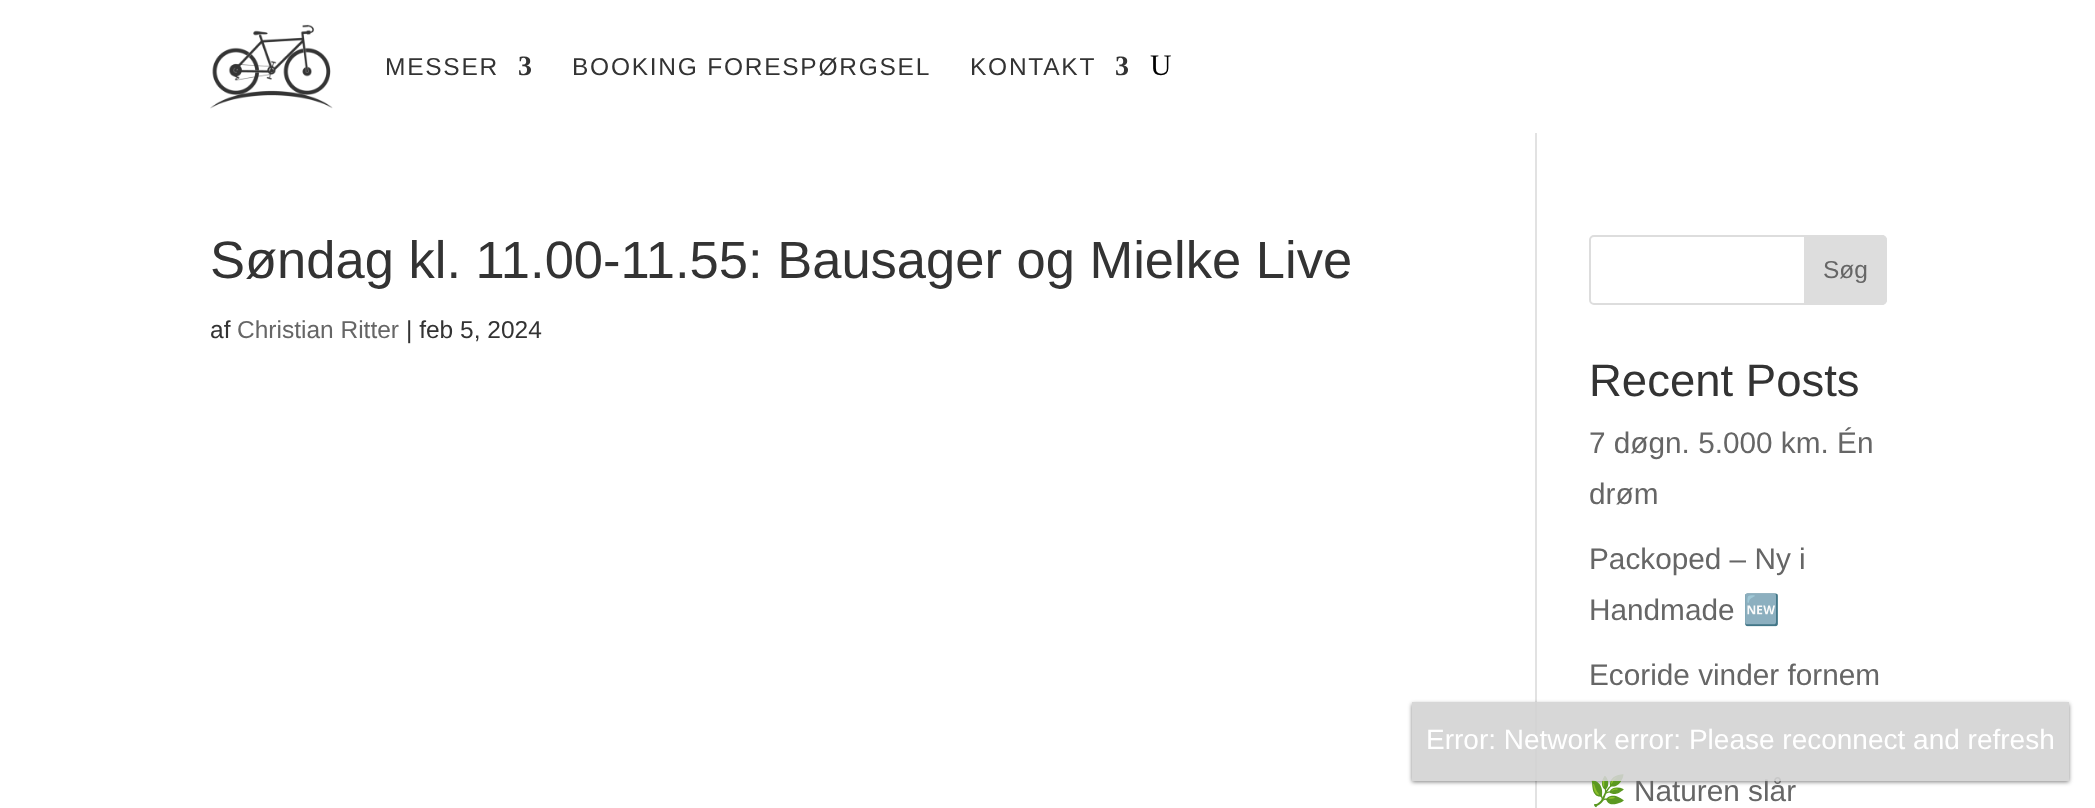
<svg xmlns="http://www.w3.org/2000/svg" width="2095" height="808">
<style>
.a{font:24.5px Liberation Sans;letter-spacing:1.75px;fill:#333}
.b{font:bold 28px Liberation Serif;letter-spacing:1.75px;fill:#333}
.c{font:29.75px Liberation Serif;fill:#000}
.d{font:52.5px Liberation Sans;fill:#333}
.e{font:24.5px Liberation Sans;fill:#333}
.f{font:24.5px Liberation Sans;fill:#666}
.g{font:45.5px Liberation Sans;fill:#333}
.h{font:29.75px Liberation Sans;fill:#666}
.i{font:29.75px Noto Color Emoji;fill:#666}
.j{font:28px Liberation Sans;fill:#fff}
</style>
<defs>
<clipPath id="clip1"><path d="M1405 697h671v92h-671zm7 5h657v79h-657z" clip-rule="evenodd"/></clipPath>
</defs>
<rect width="100%" height="100%" fill="#fff"/>
<image href="1.png" x="210" y="24" width="123" height="85"/>
<path fill="#e2e2e2" d="M1535 133h2v675H1535z"/>
<rect fill="none" stroke="#ddd" stroke-width="2" x="1590" y="236" width="296" height="68" rx="4"/>
<path fill="#ddd" stroke="#ddd" stroke-width="2" d="M1805 236h77c2 0 4 2 4 4v60c0 2-2 4-4 4h-77z"/>
<g clip-path="url(#clip1)">
<path fill="#00000080" filter="blur(2px)" d="M1412 704h657v78H1412z"/>
</g>
<text class="a" x="385" y="75">MESSER</text>
<text class="b" x="518" y="75">3</text>
<text class="a" x="572" y="75">BOOKING FORESPØRGSEL</text>
<text class="a" x="970" y="75">KONTAKT</text>
<text class="b" x="1115" y="75">3</text>
<text class="c" x="1150" y="75">U</text>
<text class="d" x="210" y="278">Søndag kl. 11.00-11.55: Bausager og Mielke Live</text>
<text class="e" x="210" y="338">af</text>
<text class="f" x="237" y="338">Christian Ritter</text>
<text class="e" x="406" y="338">| feb 5, 2024</text>
<text class="f" x="1823" y="278">Søg</text>
<text class="g" x="1589" y="396">Recent Posts</text>
<text class="h" x="1589" y="453">7 døgn. 5.000 km. Én</text>
<text class="h" x="1589" y="504">drøm</text>
<text class="h" x="1589" y="569">Packoped – Ny i</text>
<text class="h" x="1589" y="620">Handmade</text>
<text class="i" x="1743" y="620">🆕</text>
<text class="h" x="1589" y="685">Ecoride vinder fornem</text>
<text class="i" x="1589" y="801">🌿</text>
<text class="h" x="1634" y="801">Naturen slår</text>
<path fill="#d3d3d3e6" d="M1412 702h657v79H1412z"/>
<text class="j" x="1426" y="749">Error: Network error: Please reconnect and refresh</text>
</svg>
